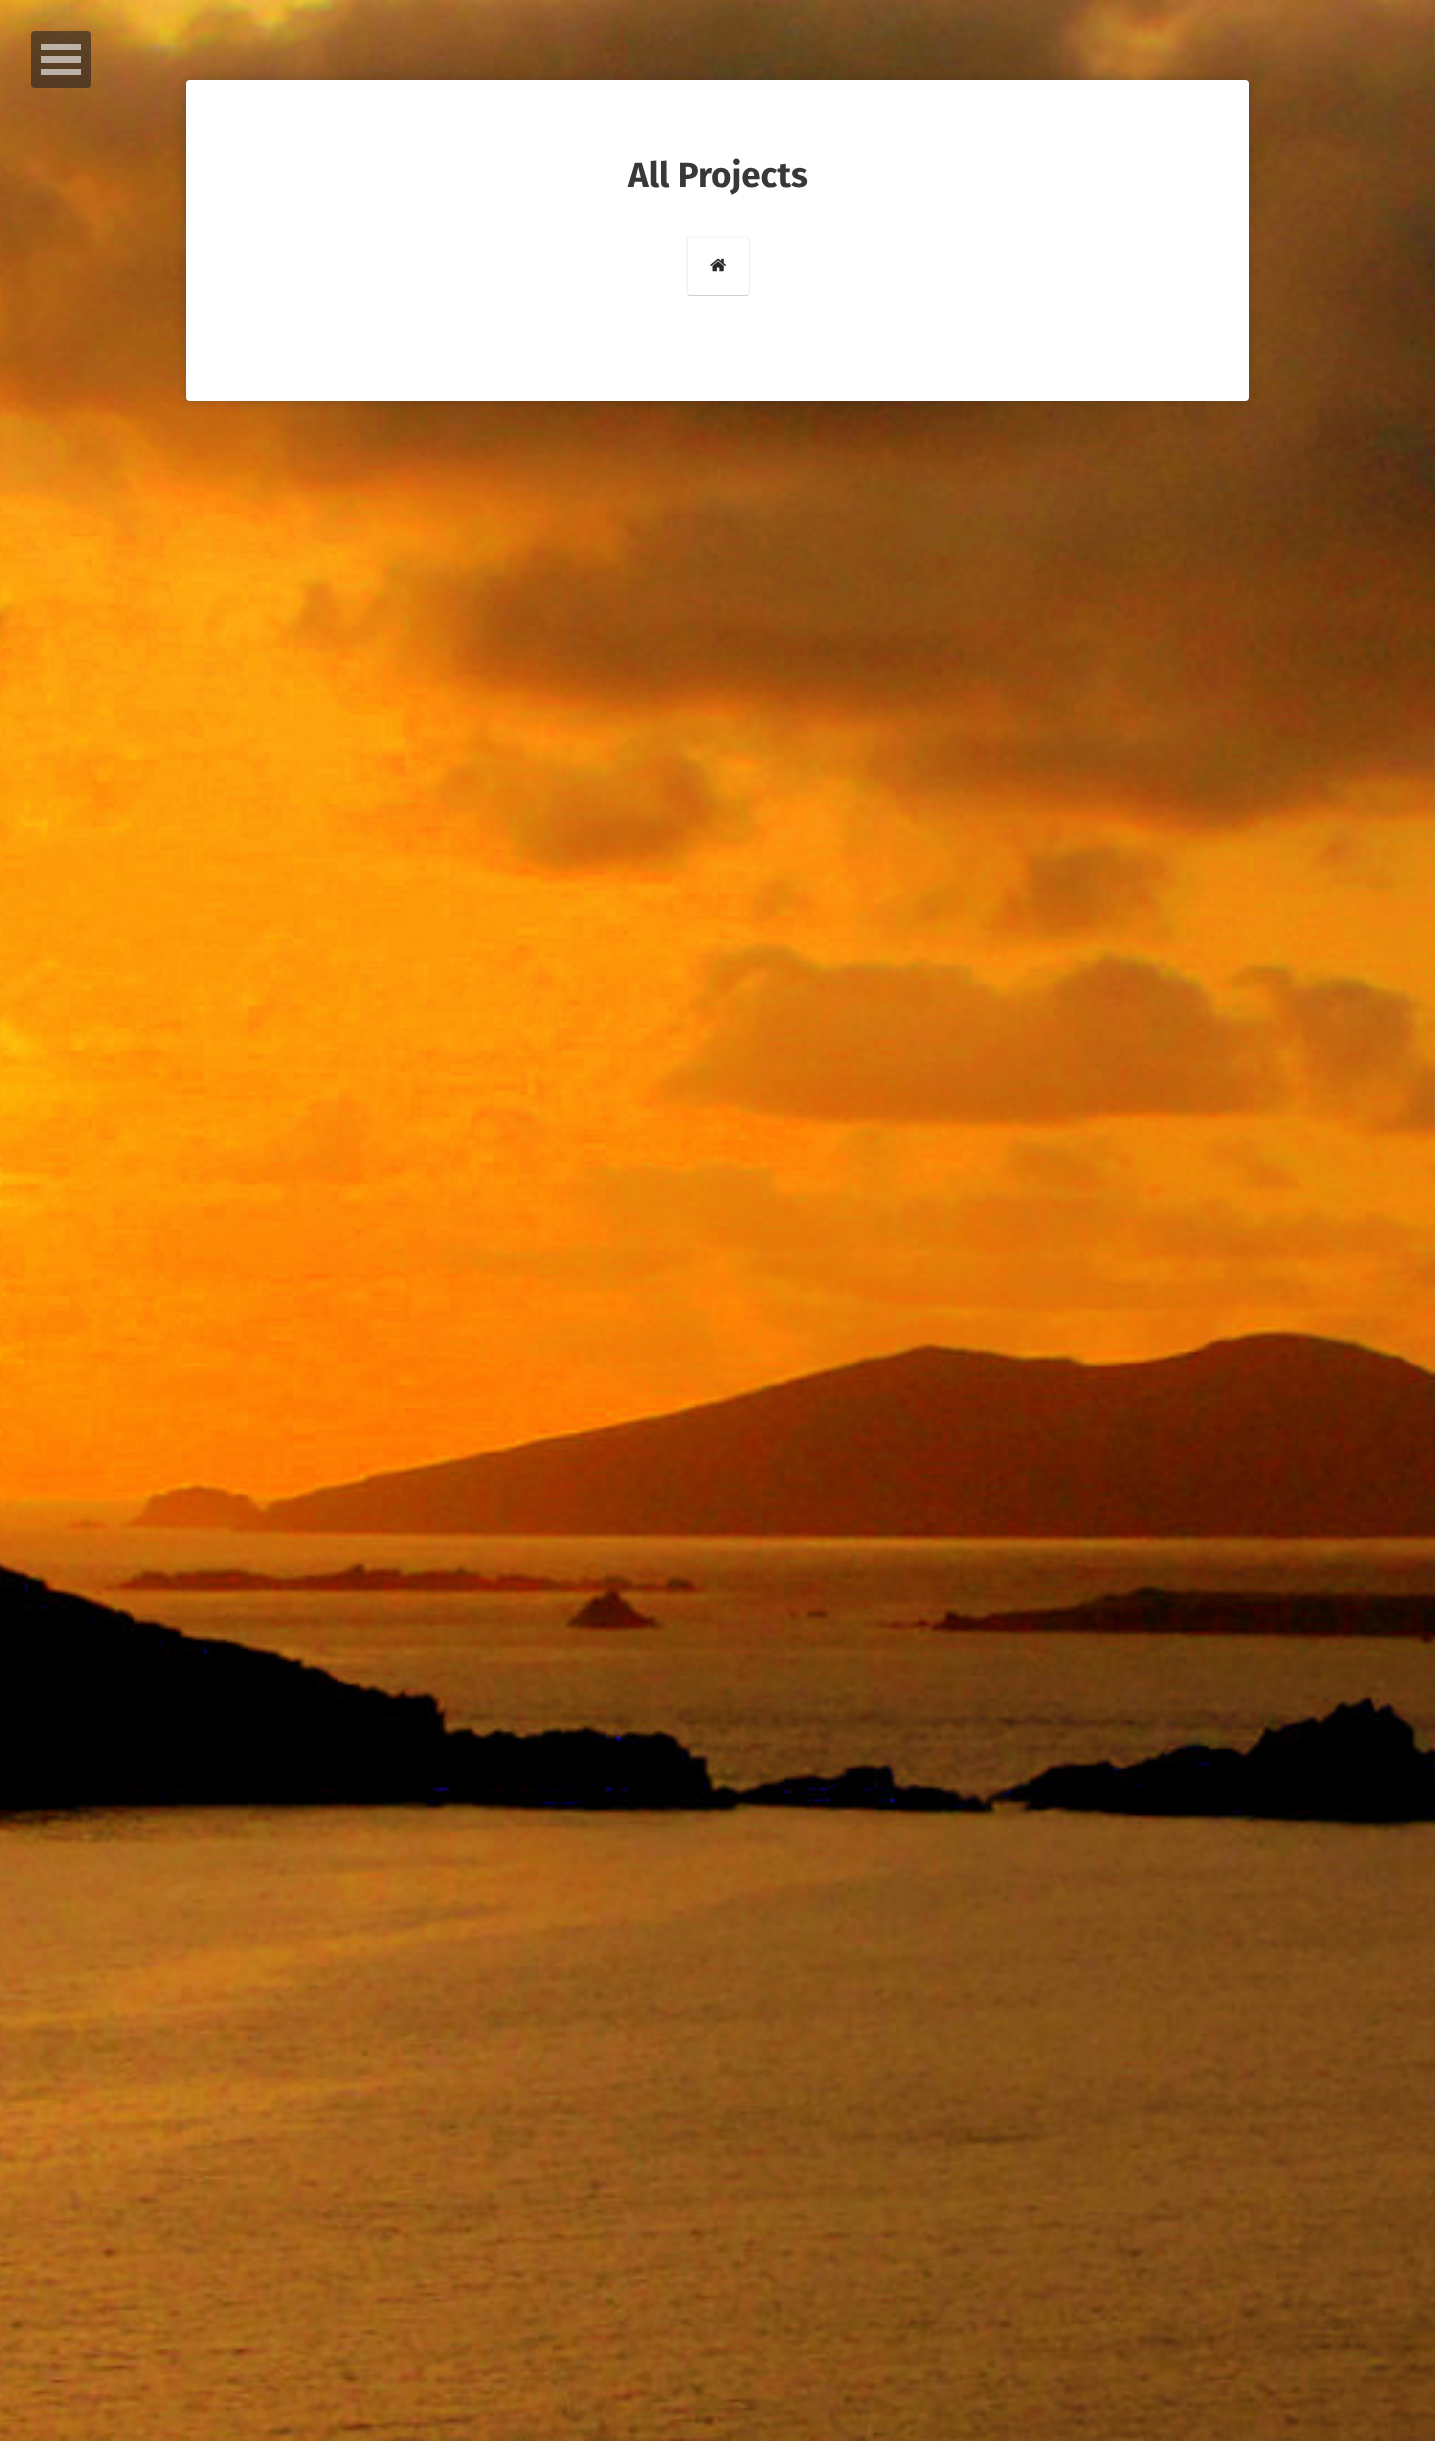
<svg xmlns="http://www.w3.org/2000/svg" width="1435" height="2441">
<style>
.a{font:bold 35px Fira Sans;fill:#383838}
</style>
<rect width="100%" height="100%" fill="#fff"/>
<image href="1.png" x="0" y="0" width="1435" height="2441"/>
<rect fill="#22222299" x="31" y="31" width="60" height="57" rx="4"/>
<path fill="#ffffff99" d="M41 69h40v6H41z"/>
<path fill="#ffffff99" d="M41 56h40v7H41z"/>
<path fill="#ffffff99" d="M41 44h40v6H41z"/>
<rect fill="#2828284d" filter="blur(6px)" x="186" y="80" width="1063" height="321" rx="4"/>
<rect fill="#fff" x="186" y="80" width="1063" height="321" rx="4"/>
<path fill="none" stroke="#f2f3f4" stroke-width="1.2" d="M688 238l1.5-1h57l2 1"/>
<path fill="none" stroke="#efeff1" stroke-width="1.2" d="M748.5 238l1 1.5v53.5l-1 1.5"/>
<path fill="none" stroke="#d0d1d5" stroke-width="1.2" d="M748.5 294.5l-2 1h-57l-1.5-1"/>
<path fill="none" stroke="#dfe0e480" stroke-width="1.2" d="M688 294.5l-1-1.5v-53.5l1-1.5"/>
<image href="2.png" x="710" y="258" width="16" height="14"/>
<text class="a" x="628" y="187">All Projects</text>
</svg>
